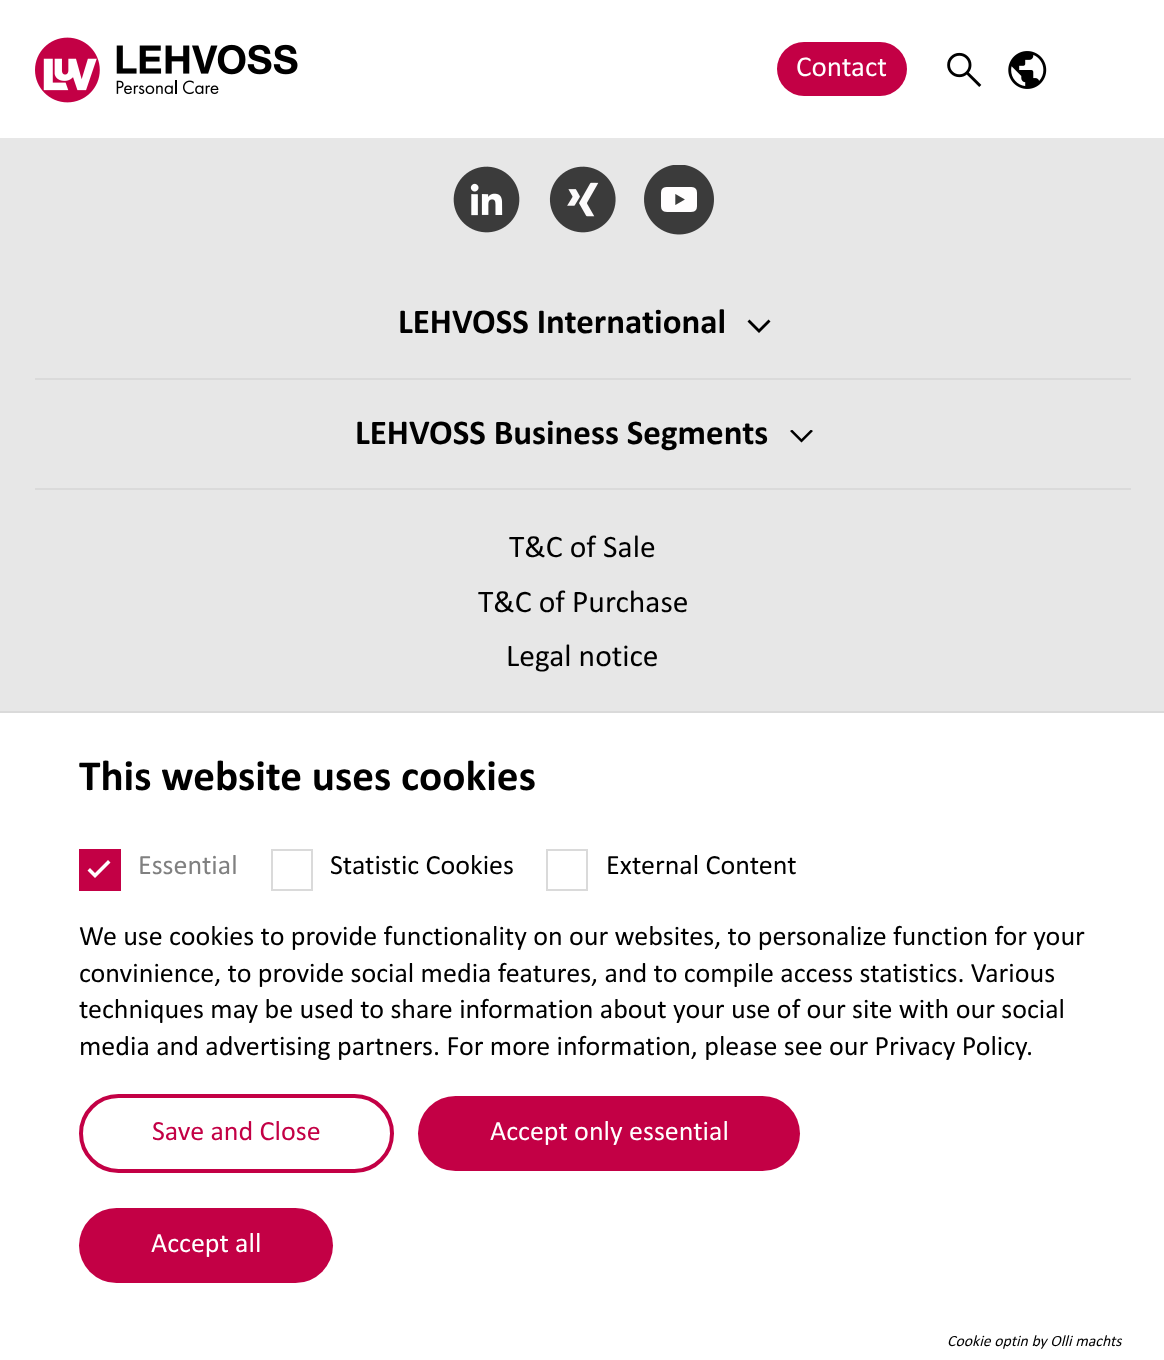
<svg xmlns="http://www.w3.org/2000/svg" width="1164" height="1360">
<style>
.a{font:29px Calibri;fill:#fff}
.b{font:bold 35px Calibri;fill:#000}
.c{font:31.5px Calibri;fill:#000}
.d{font:bold 43.25px Calibri;fill:#000}
.e{font:28px Calibri;fill:#808080}
.f{font:28px Calibri;fill:#000}
.g{font:28px Calibri;fill:#c30045}
.h{font:28px Calibri;fill:#fff}
.i{font:italic 15.75px Calibri;fill:#000}
</style>
<rect width="100%" height="100%" fill="#e7e7e7"/>
<path fill="#fff" d="M0 0h1164v138H0z"/>
<image href="1.png" x="35" y="37" width="263" height="66"/>
<rect fill="#c30045" x="777" y="42" width="130" height="54" rx="27"/>
<image href="2.png" x="947" y="52" width="35" height="35"/>
<image href="3.png" x="1008" y="51" width="39" height="38"/>
<image href="4.png" x="453" y="166" width="67" height="67"/>
<image href="5.png" x="549" y="166" width="67" height="67"/>
<image href="6.png" x="644" y="165" width="70" height="70"/>
<path fill="#dadada" d="M35 378h1096v2H35z"/>
<path fill="#000" d="M747.5 321.5l2-2l9.5 9.5l9.5-9.5l2 2l-11.5 11.5z"/>
<path fill="#dadada" d="M35 488h1096v2H35z"/>
<path fill="#000" d="M790 431l11.5 11.5l11.5-11.5l-1.5-1h-1l-9 9l-9-9h-1z"/>
<path fill="#fff" d="M0 713h1164v647H0z"/>
<path fill="#dadada" d="M0 711h1164v2H0z"/>
<path fill="#c30045" d="M79 849h42v42H79z"/>
<path fill="#fff" d="M108 860l-13 13l-5-5l-2.5 2.5l7.5 7.5l15.5-15.5z"/>
<path fill="none" stroke="#dadada" stroke-width="2" d="M272 850h40v40H272z"/>
<path fill="none" stroke="#dadada" stroke-width="2" d="M547 850h40v40H547z"/>
<rect fill="none" stroke="#c30045" stroke-width="4" x="81" y="1096" width="311" height="75" rx="37.5"/>
<rect fill="#c30045" x="418" y="1096" width="382" height="75" rx="37.5"/>
<rect fill="#c30045" x="79" y="1208" width="254" height="75" rx="37.5"/>
<text class="a" x="796" y="76">Contact</text>
<text class="b" x="398" y="333">LEHVOSS International</text>
<text class="b" x="355" y="444">LEHVOSS Business Segments</text>
<text class="c" x="509" y="557">T&amp;C of Sale</text>
<text class="c" x="478" y="612">T&amp;C of Purchase</text>
<text class="c" x="506" y="666">Legal notice</text>
<text class="d" x="79" y="790">This website uses cookies</text>
<text class="e" x="138" y="874">Essential</text>
<text class="f" x="330" y="874">Statistic Cookies</text>
<text class="f" x="606" y="874">External Content</text>
<text class="f" x="79" y="945">We use cookies to provide functionality on our websites, to personalize function for your</text>
<text class="f" x="79" y="982">convinience, to provide social media features, and to compile access statistics. Various</text>
<text class="f" x="79" y="1018">techniques may be used to share information about your use of our site with our social</text>
<text class="f" x="79" y="1055">media and advertising partners. For more information, please see our Privacy Policy.</text>
<text class="g" x="152" y="1140">Save and Close</text>
<text class="h" x="490" y="1140">Accept only essential</text>
<text class="h" x="151" y="1252">Accept all</text>
<text class="i" x="947" y="1346">Cookie optin by Olli machts</text>
</svg>
